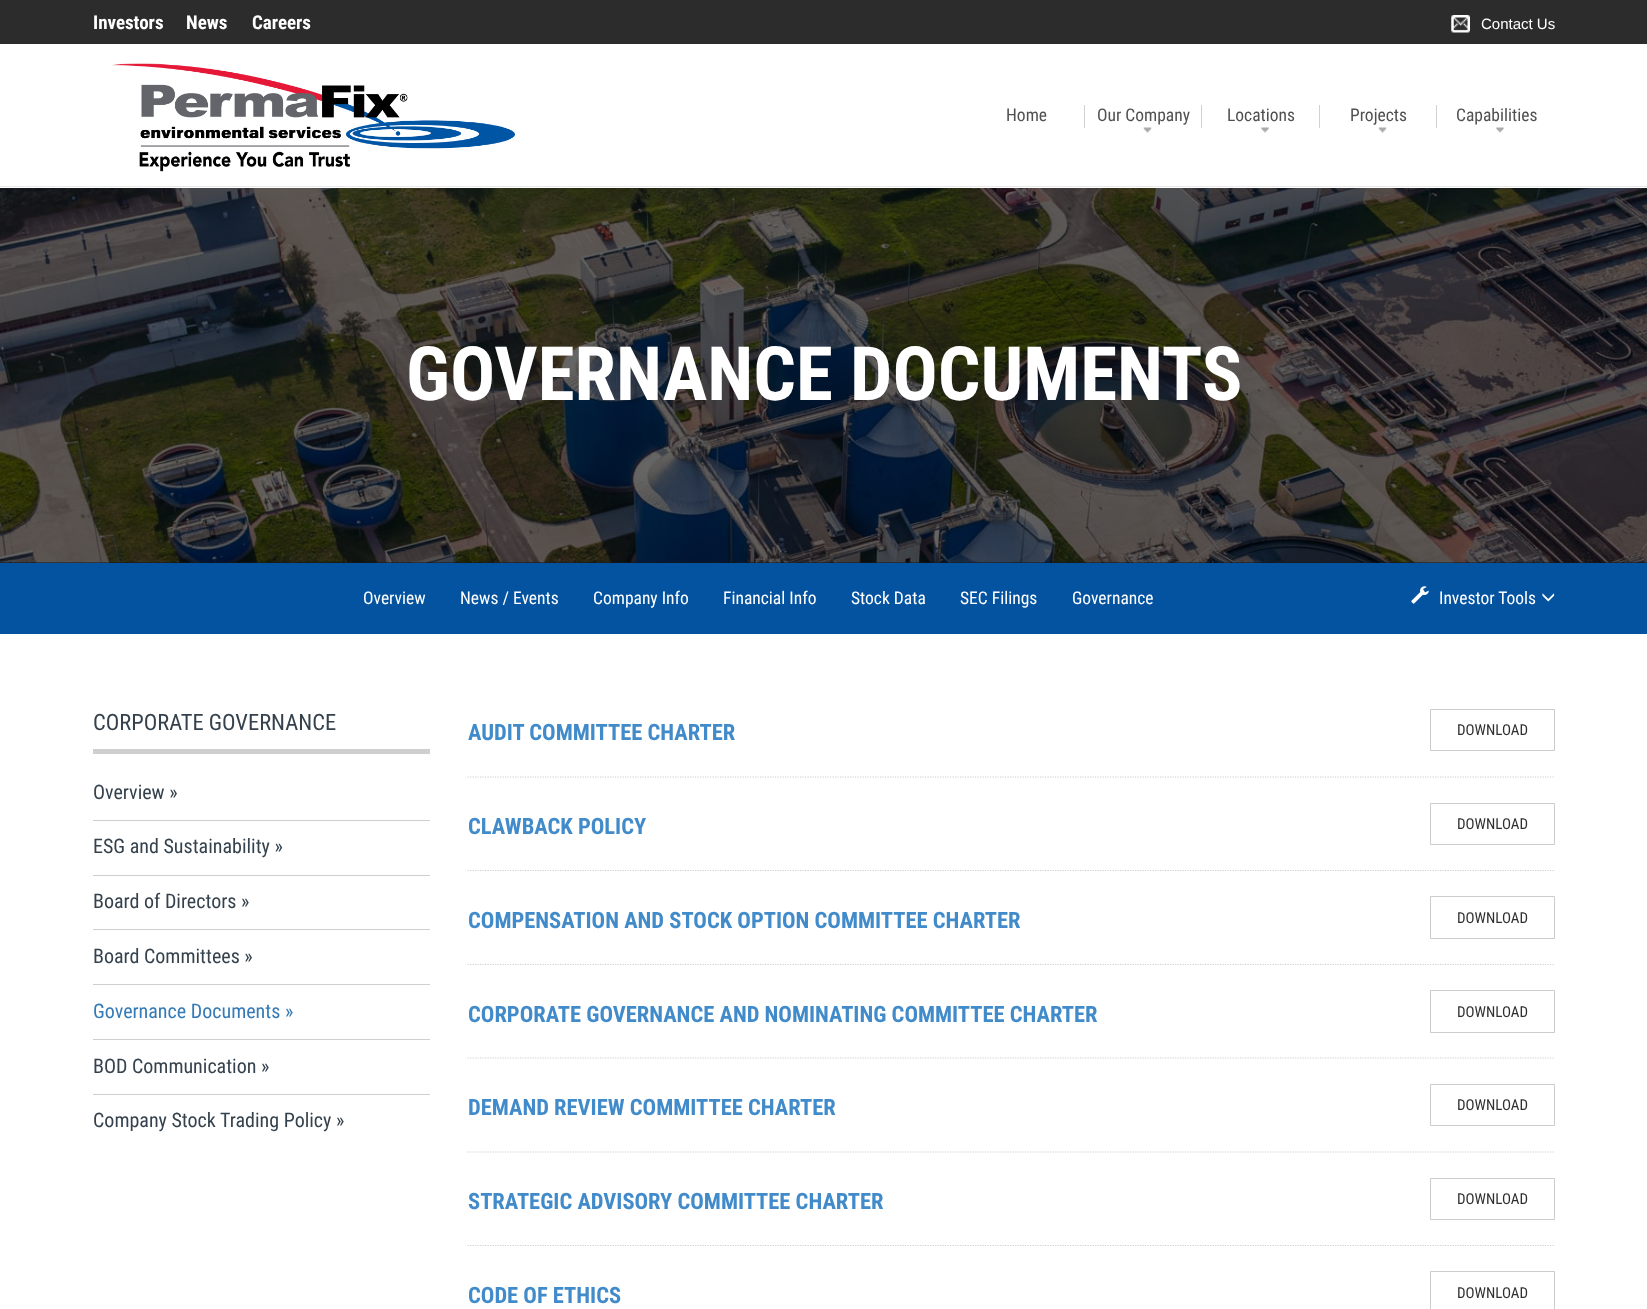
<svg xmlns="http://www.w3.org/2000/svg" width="1647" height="1309">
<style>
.a{font:bold 19px Roboto Condensed;fill:#fff}
.b{font:15px Liberation Sans;fill:#fff}
.c{font:17.5px Roboto Condensed;fill:#505050}
.d{font:bold 75px Roboto Condensed;fill:#fff}
.e{font:17.5px Roboto Condensed;fill:#fff}
.f{font:22.5px Roboto Condensed;fill:#35424d}
.g{font:20px Roboto Condensed;fill:#35424d}
.h{font:20px Roboto Condensed;fill:#347ab7}
.i{font:bold 22.5px Roboto Condensed;fill:#428bca}
.j{font:15px Roboto Condensed;fill:#2f2f2f}
</style>
<rect width="100%" height="100%" fill="#141518"/>
<path fill="#fff" d="M0 44h1647v144H0z"/>
<path fill="#e9e9e9" d="M0 186h1647v1H0z"/>
<path fill="#2c2c2c" d="M0 0h1647v44H0z"/>
<image href="1.png" x="1451" y="15" width="19" height="18"/>
<image href="2.png" x="111" y="63" width="404" height="109"/>
<path fill="#d0d0d0" d="M1084 105h1v23H1084z"/>
<path fill="#d0d0d0" d="M1201 105h1v23H1201z"/>
<image href="3.png" x="1143" y="127" width="9" height="6"/>
<path fill="#d0d0d0" d="M1319 105h1v23H1319z"/>
<image href="4.png" x="1261" y="127" width="8" height="6"/>
<path fill="#d0d0d0" d="M1436 105h1v23H1436z"/>
<image href="3.png" x="1378" y="127" width="9" height="6"/>
<image href="4.png" x="1496" y="127" width="8" height="6"/>
<image href="5.png" x="0" y="188" width="1647" height="375"/>
<path fill="#0453a0" d="M0 563h1647v71H0z"/>
<image href="6.png" x="1411" y="586" width="18" height="18"/>
<image href="7.png" x="1542" y="593" width="13" height="9"/>
<path fill="#fff" d="M0 634h1647v675H0z"/>
<path fill="#cfcfcf" d="M93 749h337v5H93z"/>
<path fill="#cfcfcf" d="M93 820h337v1H93z"/>
<path fill="#cfcfcf" d="M93 875h337v1H93z"/>
<path fill="#cfcfcf" d="M93 929h337v1H93z"/>
<path fill="#cfcfcf" d="M93 984h337v1H93z"/>
<path fill="#cfcfcf" d="M93 1039h337v1H93z"/>
<path fill="#cfcfcf" d="M93 1094h337v1H93z"/>
<path fill="none" stroke="#ccc" d="M1430.5 709.5h124v41H1430.5z"/>
<path fill="none" stroke="#cfcfcf" stroke-width="1.2" stroke-dasharray="1.25 1.25" d="M467.5 777h1087.5"/>
<path fill="none" stroke="#ccc" d="M1430.5 803.5h124v41H1430.5z"/>
<path fill="none" stroke="#cfcfcf" stroke-width="1.2" stroke-dasharray="1.25 1.25" d="M467.5 870.5h1087.5"/>
<path fill="none" stroke="#ccc" d="M1430.5 896.5h124v42H1430.5z"/>
<path fill="none" stroke="#cfcfcf" stroke-width="1.2" stroke-dasharray="1.25 1.25" d="M467.5 964.5h1087.5"/>
<path fill="none" stroke="#ccc" d="M1430.5 990.5h124v42H1430.5z"/>
<path fill="none" stroke="#cfcfcf" stroke-width="1.2" stroke-dasharray="1.25 1.25" d="M467.5 1058h1087.5"/>
<path fill="none" stroke="#ccc" d="M1430.5 1084.5h124v41H1430.5z"/>
<path fill="none" stroke="#cfcfcf" stroke-width="1.2" stroke-dasharray="1.25 1.25" d="M467.5 1152h1087.5"/>
<path fill="none" stroke="#ccc" d="M1430.5 1178.5h124v41H1430.5z"/>
<path fill="none" stroke="#cfcfcf" stroke-width="1.2" stroke-dasharray="1.25 1.25" d="M467.5 1245.5h1087.5"/>
<path fill="none" stroke="#ccc" d="M1430.5 1271.5h124v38H1430.5z"/>
<text class="a" x="93" y="29">Investors</text>
<text class="a" x="186" y="29">News</text>
<text class="a" x="252" y="29">Careers</text>
<text class="b" x="1481" y="29">Contact Us</text>
<text class="c" x="1006" y="121">Home</text>
<text class="c" x="1097" y="121">Our Company</text>
<text class="c" x="1227" y="121">Locations</text>
<text class="c" x="1350" y="121">Projects</text>
<text class="c" x="1456" y="121">Capabilities</text>
<text class="d" x="406" y="400">GOVERNANCE DOCUMENTS</text>
<text class="e" x="363" y="604">Overview</text>
<text class="e" x="460" y="604">News / Events</text>
<text class="e" x="593" y="604">Company Info</text>
<text class="e" x="723" y="604">Financial Info</text>
<text class="e" x="851" y="604">Stock Data</text>
<text class="e" x="960" y="604">SEC Filings</text>
<text class="e" x="1072" y="604">Governance</text>
<text class="e" x="1439" y="604">Investor Tools</text>
<text class="f" x="93" y="730">CORPORATE GOVERNANCE</text>
<text class="g" x="93" y="799">Overview »</text>
<text class="g" x="93" y="853">ESG and Sustainability »</text>
<text class="g" x="93" y="908">Board of Directors »</text>
<text class="g" x="93" y="963">Board Committees »</text>
<text class="h" x="93" y="1018">Governance Documents »</text>
<text class="g" x="93" y="1073">BOD Communication »</text>
<text class="g" x="93" y="1127">Company Stock Trading Policy »</text>
<text class="i" x="468" y="740">AUDIT COMMITTEE CHARTER</text>
<text class="j" x="1457" y="735">DOWNLOAD</text>
<text class="i" x="468" y="834">CLAWBACK POLICY</text>
<text class="j" x="1457" y="829">DOWNLOAD</text>
<text class="i" x="468" y="928">COMPENSATION AND STOCK OPTION COMMITTEE CHARTER</text>
<text class="j" x="1457" y="923">DOWNLOAD</text>
<text class="i" x="468" y="1022">CORPORATE GOVERNANCE AND NOMINATING COMMITTEE CHARTER</text>
<text class="j" x="1457" y="1017">DOWNLOAD</text>
<text class="i" x="468" y="1115">DEMAND REVIEW COMMITTEE CHARTER</text>
<text class="j" x="1457" y="1110">DOWNLOAD</text>
<text class="i" x="468" y="1209">STRATEGIC ADVISORY COMMITTEE CHARTER</text>
<text class="j" x="1457" y="1204">DOWNLOAD</text>
<text class="i" x="468" y="1303">CODE OF ETHICS</text>
<text class="j" x="1457" y="1298">DOWNLOAD</text>
</svg>
